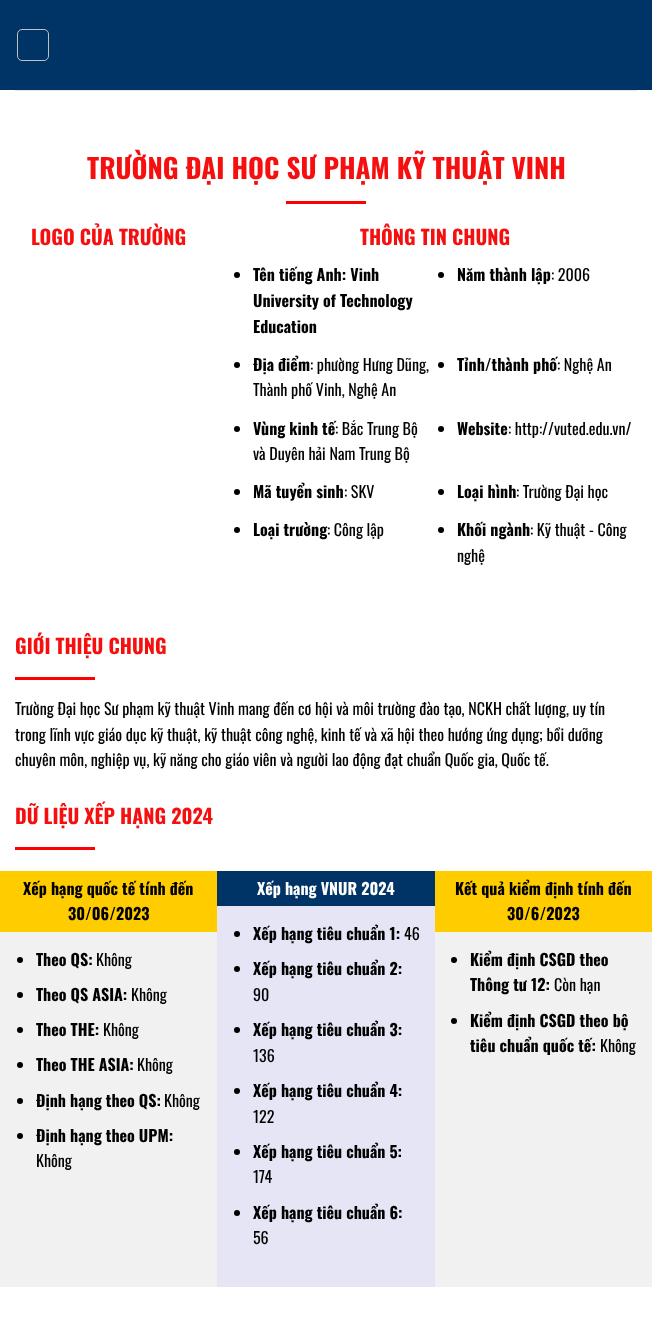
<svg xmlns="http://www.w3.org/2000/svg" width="652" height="1334">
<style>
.a{font:bold 27.25px Oswald;fill:#f50f0f}
.b{font:bold 20px Oswald;fill:#f50f0f}
.c{font:bold 16px Oswald;fill:#000}
.d{font:16px Oswald;fill:#000}
.e{font:bold 16px Oswald;fill:#fff}
</style>
<rect width="100%" height="100%" fill="#fff"/>
<path fill="#036" d="M0 0h652v90H0z"/>
<rect fill="none" stroke="#c0c0c0" x="17.5" y="29.5" width="31" height="31" rx="4.5"/>
<path fill="#e6e6e6" d="M15 90h622v1H15z"/>
<path fill="#f00" d="M286 201h80v3H286z"/>
<circle fill="#000" cx="237" cy="275" r="3"/>
<circle fill="#000" cx="441" cy="275" r="3"/>
<circle fill="#000" cx="237" cy="365" r="3"/>
<circle fill="#000" cx="441" cy="365" r="3"/>
<circle fill="#000" cx="237" cy="429" r="3"/>
<circle fill="#000" cx="441" cy="429" r="3"/>
<circle fill="#000" cx="237" cy="492" r="3"/>
<circle fill="#000" cx="441" cy="492" r="3"/>
<circle fill="#000" cx="237" cy="530" r="3"/>
<circle fill="#000" cx="441" cy="530" r="3"/>
<path fill="#f00" d="M15 677h80v3H15z"/>
<path fill="#f00" d="M15 847h80v3H15z"/>
<path fill="#f1f1f1" d="M0 932h217v355H0z"/>
<path fill="#fc0" d="M0 871h217v61H0z"/>
<circle fill="#000" cx="20" cy="960" r="3"/>
<circle fill="#000" cx="20" cy="995" r="3"/>
<circle fill="#000" cx="20" cy="1030" r="3"/>
<circle fill="#000" cx="20" cy="1065" r="3"/>
<circle fill="#000" cx="20" cy="1101" r="3"/>
<circle fill="#000" cx="20" cy="1136" r="3"/>
<path fill="#e5e5f5" d="M217 906h218v381H217z"/>
<path fill="#036" d="M217 871h218v35H217z"/>
<circle fill="#000" cx="237" cy="934" r="3"/>
<circle fill="#000" cx="237" cy="969" r="3"/>
<circle fill="#000" cx="237" cy="1030" r="3"/>
<circle fill="#000" cx="237" cy="1091" r="3"/>
<circle fill="#000" cx="237" cy="1152" r="3"/>
<circle fill="#000" cx="237" cy="1213" r="3"/>
<path fill="#f1f1f1" d="M435 932h217v355H435z"/>
<path fill="#fc0" d="M435 871h217v61H435z"/>
<circle fill="#000" cx="454" cy="960" r="3"/>
<circle fill="#000" cx="454" cy="1021" r="3"/>
<text class="a" x="87" y="179">TRƯỜNG ĐẠI HỌC SƯ PHẠM KỸ THUẬT VINH</text>
<text class="b" x="31" y="245">LOGO CỦA TRƯỜNG</text>
<text class="b" x="360" y="245">THÔNG TIN CHUNG</text>
<text class="c" x="253" y="281">Tên tiếng Anh: Vinh</text>
<text class="c" x="253" y="307">University of Technology</text>
<text class="c" x="253" y="333">Education</text>
<text class="c" x="457" y="281">Năm thành lập</text>
<text class="d" x="551" y="281">: 2006</text>
<text class="c" x="253" y="371">Địa điểm</text>
<text class="d" x="310" y="371">: phường Hưng Dũng,</text>
<text class="d" x="253" y="396">Thành phố Vinh, Nghệ An</text>
<text class="c" x="457" y="371">Tỉnh/thành phố</text>
<text class="d" x="557" y="371">: Nghệ An</text>
<text class="c" x="253" y="435">Vùng kinh tế</text>
<text class="d" x="335" y="435">: Bắc Trung Bộ</text>
<text class="d" x="253" y="460">và Duyên hải Nam Trung Bộ</text>
<text class="c" x="457" y="435">Website</text>
<text class="d" x="508" y="435">: http://vuted.edu.vn/</text>
<text class="c" x="253" y="498">Mã tuyển sinh</text>
<text class="d" x="344" y="498">: SKV</text>
<text class="c" x="457" y="498">Loại hình</text>
<text class="d" x="516" y="498">: Trường Đại học</text>
<text class="c" x="253" y="536">Loại trường</text>
<text class="d" x="327" y="536">: Công lập</text>
<text class="c" x="457" y="536">Khối ngành</text>
<text class="d" x="530" y="536">: Kỹ thuật - Công</text>
<text class="d" x="457" y="562">nghệ</text>
<text class="b" x="15" y="654">GIỚI THIỆU CHUNG</text>
<text class="d" x="15" y="715">Trường Đại học Sư phạm kỹ thuật Vinh mang đến cơ hội và môi trường đào tạo, NCKH chất lượng, uy tín</text>
<text class="d" x="15" y="741">trong lĩnh vực giáo dục kỹ thuật, kỹ thuật công nghệ, kinh tế và xã hội theo hướng ứng dụng; bồi dưỡng</text>
<text class="d" x="15" y="766">chuyên môn, nghiệp vụ, kỹ năng cho giáo viên và người lao động đạt chuẩn Quốc gia, Quốc tế.</text>
<text class="b" x="15" y="824">DỮ LIỆU XẾP HẠNG 2024</text>
<text class="c" x="23" y="895">Xếp hạng quốc tế tính đến</text>
<text class="c" x="68" y="920">30/06/2023</text>
<text class="c" x="36" y="966">Theo QS:</text>
<text class="d" x="96" y="966">Không</text>
<text class="c" x="36" y="1001">Theo QS ASIA:</text>
<text class="d" x="131" y="1001">Không</text>
<text class="c" x="36" y="1036">Theo THE:</text>
<text class="d" x="103" y="1036">Không</text>
<text class="c" x="36" y="1071">Theo THE ASIA:</text>
<text class="d" x="137" y="1071">Không</text>
<text class="c" x="36" y="1107">Định hạng theo QS:</text>
<text class="d" x="164" y="1107">Không</text>
<text class="c" x="36" y="1142">Định hạng theo UPM:</text>
<text class="d" x="36" y="1167">Không</text>
<text class="e" x="257" y="895">Xếp hạng VNUR 2024</text>
<text class="c" x="253" y="940">Xếp hạng tiêu chuẩn 1:</text>
<text class="d" x="404" y="940">46</text>
<text class="c" x="253" y="975">Xếp hạng tiêu chuẩn 2:</text>
<text class="d" x="253" y="1001">90</text>
<text class="c" x="253" y="1036">Xếp hạng tiêu chuẩn 3:</text>
<text class="d" x="253" y="1062">136</text>
<text class="c" x="253" y="1097">Xếp hạng tiêu chuẩn 4:</text>
<text class="d" x="253" y="1123">122</text>
<text class="c" x="253" y="1158">Xếp hạng tiêu chuẩn 5:</text>
<text class="d" x="253" y="1183">174</text>
<text class="c" x="253" y="1219">Xếp hạng tiêu chuẩn 6:</text>
<text class="d" x="253" y="1244">56</text>
<text class="c" x="455" y="895">Kết quả kiểm định tính đến</text>
<text class="c" x="507" y="920">30/6/2023</text>
<text class="c" x="470" y="966">Kiểm định CSGD theo</text>
<text class="c" x="470" y="991">Thông tư 12:</text>
<text class="d" x="554" y="991">Còn hạn</text>
<text class="c" x="470" y="1027">Kiểm định CSGD theo bộ</text>
<text class="c" x="470" y="1052">tiêu chuẩn quốc tế:</text>
<text class="d" x="600" y="1052">Không</text>
</svg>
